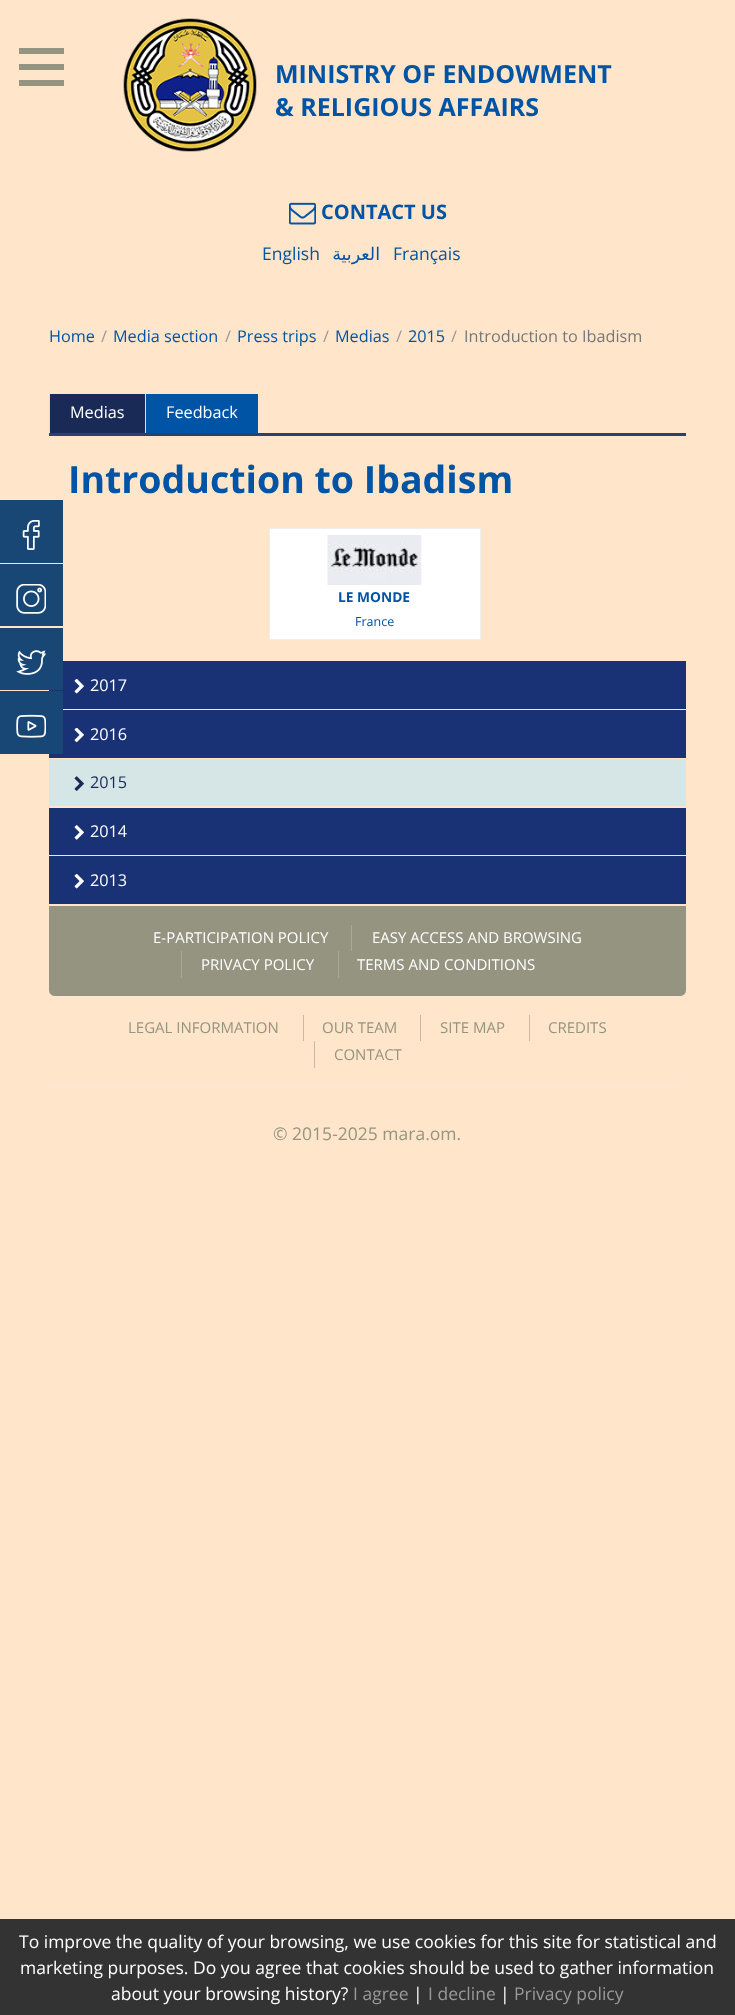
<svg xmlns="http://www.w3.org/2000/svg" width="735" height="2015">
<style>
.a{font:bold 25px Open Sans;fill:#0054a6}
.b{font:bold 20px Open Sans;fill:#0054a6}
.c{font:17.5px Open Sans;fill:#0054a6}
.d{font:17.5px DejaVu Sans;direction:rtl;fill:#0054a6}
.e{font:16.25px Open Sans;fill:#0054a6}
.f{font:16.25px Open Sans;fill:#999}
.g{font:16.25px Open Sans;fill:#777}
.h{font:16.25px Open Sans;fill:#fff}
.i{font:bold 37.5px Open Sans;fill:#0054a6}
.j{font:bold 13.75px Open Sans;fill:#0054a6}
.k{font:12.5px Open Sans;fill:#0054a6}
.l{font:16.25px Open Sans;fill:#1a2a57}
.m{font:15px Open Sans;fill:#fff}
.n{font:15px Open Sans;fill:#959480}
.o{font:17.5px Open Sans;fill:#959480}
.p{font:17.5px Open Sans;fill:#fff}
.q{font:17.5px Open Sans;fill:#999}
</style>
<rect width="100%" height="100%" fill="#ffe5ca"/>
<path fill="#194775" d="M0 500h63v63H0z"/>
<image href="1.png" x="22" y="520" width="18" height="30"/>
<path fill="#194775" d="M0 564h63v62H0z"/>
<image href="2.png" x="16" y="584" width="30" height="30"/>
<path fill="#193175" d="M49 661h637v48H49z"/>
<path fill="#194775" d="M0 628h63v62H0z"/>
<image href="3.png" x="16" y="650" width="30" height="25"/>
<path fill="#193175" d="M49 710h637v48H49z"/>
<path fill="#194775" d="M0 691h63v63H0z"/>
<image href="4.png" x="16" y="714" width="30" height="24"/>
<path fill="#959480" d="M19 48h45v6H19z"/>
<path fill="#959480" d="M19 64h45v6H19z"/>
<path fill="#959480" d="M19 80h45v6H19z"/>
<image href="5.png" x="123" y="18" width="134" height="134"/>
<image href="6.png" x="289" y="202" width="27" height="23"/>
<path fill="#2c3f71" d="M49 433h637v3H49z"/>
<path fill="#1a2a57" d="M50 394h95v39H50z"/>
<path fill="#dfdfdf" d="M49 394h1v39H49z"/>
<path fill="#0054a6" d="M146 394h112v39H146z"/>
<path fill="#dfdfdf" d="M145 394h1v39H145z"/>
<path fill="#fff" stroke="#eee" d="M269.5 528.5h211v111H269.5z"/>
<image href="7.png" x="327" y="535" width="95" height="50"/>
<image href="8.png" x="74" y="679" width="10" height="15"/>
<image href="9.png" x="74" y="728" width="10" height="15"/>
<path fill="#d6e6e6" d="M49 759h637v47H49z"/>
<image href="10.png" x="74" y="776" width="10" height="15"/>
<path fill="#193175" d="M49 808h637v47H49z"/>
<image href="11.png" x="74" y="825" width="10" height="15"/>
<path fill="#193175" d="M49 856h637v48H49z"/>
<image href="8.png" x="74" y="874" width="10" height="15"/>
<path fill="#959480" d="M49 906h637v84c0 3.5-2.5 6-6 6h-625c-3.5 0-6-2.5-6-6z"/>
<path fill="#aaa999" d="M351 925h1v26H351z"/>
<path fill="#aaa999" d="M181 951h1v27H181z"/>
<path fill="#aaa999" d="M338 951h1v27H338z"/>
<path fill="#ffe8cf" d="M49 1086h637v1H49z"/>
<path fill="#ccb7a2" d="M303 1015h1v26H303z"/>
<path fill="#ccb7a2" d="M420 1015h1v26H420z"/>
<path fill="#ccb7a2" d="M529 1015h1v26H529z"/>
<path fill="#ccb7a2" d="M314 1041h1v27H314z"/>
<path fill="#333" d="M0 1919h735v96H0z"/>
<text class="a" x="275" y="83">MINISTRY OF ENDOWMENT</text>
<text class="a" x="275" y="116">&amp; RELIGIOUS AFFAIRS</text>
<text class="b" x="321" y="219">CONTACT US</text>
<text class="c" x="262" y="260">English</text>
<text class="d" x="380" y="260">العربية</text>
<text class="c" x="393" y="260">Français</text>
<text class="e" x="49" y="342">Home</text>
<text class="f" x="101" y="342">/</text>
<text class="e" x="113" y="342">Media section</text>
<text class="f" x="225" y="342">/</text>
<text class="e" x="237" y="342">Press trips</text>
<text class="f" x="323" y="342">/</text>
<text class="e" x="335" y="342">Medias</text>
<text class="f" x="396" y="342">/</text>
<text class="e" x="408" y="342">2015</text>
<text class="f" x="451" y="342">/</text>
<text class="g" x="464" y="342">Introduction to Ibadism</text>
<text class="h" x="70" y="418">Medias</text>
<text class="h" x="166" y="418">Feedback</text>
<text class="i" x="68" y="493">Introduction to Ibadism</text>
<text class="j" x="338" y="602">LE MONDE</text>
<text class="k" x="355" y="626">France</text>
<text class="h" x="90" y="691">2017</text>
<text class="h" x="90" y="740">2016</text>
<text class="l" x="90" y="788">2015</text>
<text class="h" x="90" y="837">2014</text>
<text class="h" x="90" y="886">2013</text>
<text class="m" x="153" y="943">E-PARTICIPATION POLICY</text>
<text class="m" x="372" y="943">EASY ACCESS AND BROWSING</text>
<text class="m" x="201" y="970">PRIVACY POLICY</text>
<text class="m" x="357" y="970">TERMS AND CONDITIONS</text>
<text class="n" x="128" y="1033">LEGAL INFORMATION</text>
<text class="n" x="322" y="1033">OUR TEAM</text>
<text class="n" x="440" y="1033">SITE MAP</text>
<text class="n" x="548" y="1033">CREDITS</text>
<text class="n" x="334" y="1060">CONTACT</text>
<text class="o" x="273" y="1140">© 2015-2025 mara.om.</text>
<text class="p" x="19" y="1948">To improve the quality of your browsing, we use cookies for this site for statistical and</text>
<text class="p" x="20" y="1974">marketing purposes. Do you agree that cookies should be used to gather information</text>
<text class="p" x="111" y="2000">about your browsing history?</text>
<text class="q" x="353" y="2000">I agree</text>
<text class="p" x="413" y="2000">|</text>
<text class="q" x="428" y="2000">I decline</text>
<text class="p" x="500" y="2000">|</text>
<text class="q" x="514" y="2000">Privacy policy</text>
</svg>
